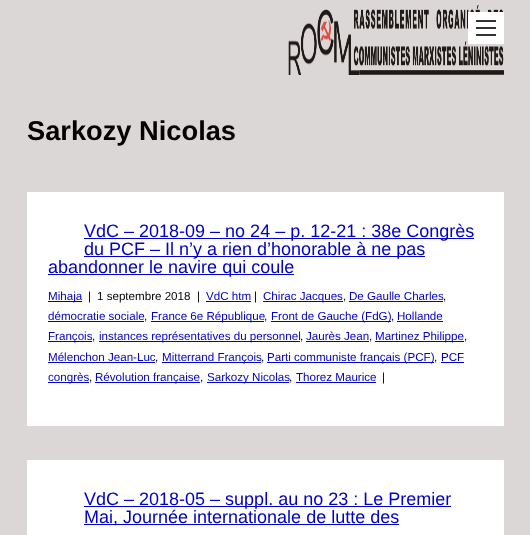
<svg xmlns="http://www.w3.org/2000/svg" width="530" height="535">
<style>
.a{font:bold 27.25px Liberation Sans;fill:#050000}
.b{font:18px Liberation Sans;fill:#0000c8}
.c{font:11.6px Liberation Sans;fill:#0000c8}
.d{font:11.6px Liberation Sans;fill:#050000}
</style>
<rect width="100%" height="100%" fill="#dbd7d7"/>
<image href="1.png" x="288" y="5" width="216" height="70"/>
<path fill="#fff" d="M476 22h20v12H476z"/>
<path fill="#333" d="M476 34h20v2H476z"/>
<path fill="none" stroke="#fff" stroke-width="8" d="M472 16h28v24H472z"/>
<path fill="#333" d="M476 20h20v2H476z"/>
<path fill="#333" d="M476 27h20v2H476z"/>
<path fill="#fff" d="M27 192h477v234H27z"/>
<path fill="#0000c8" d="M84 238h390v1H84z"/>
<path fill="#0000c8" d="M84 256h341v1H84z"/>
<path fill="#0000c8" d="M48 274h246v1H48z"/>
<path fill="#0000c8" d="M48 301h34v1H48z"/>
<path fill="#0000c8" d="M206 301h45v1H206z"/>
<path fill="#0000c8" d="M263 301h80v1H263z"/>
<path fill="#0000c8" d="M349 301h94v1H349z"/>
<path fill="#0000c8" d="M48 321h96v1H48z"/>
<path fill="#0000c8" d="M151 321h113v1H151z"/>
<path fill="#0000c8" d="M271 321h120v1H271z"/>
<path fill="#0000c8" d="M397 321h46v1H397z"/>
<path fill="#0000c8" d="M48 341h44v1H48z"/>
<path fill="#0000c8" d="M99 341h201v1H99z"/>
<path fill="#0000c8" d="M306 341h63v1H306z"/>
<path fill="#0000c8" d="M375 341h89v1H375z"/>
<path fill="#0000c8" d="M48 362h107v1H48z"/>
<path fill="#0000c8" d="M162 362h99v1H162z"/>
<path fill="#0000c8" d="M267 362h167v1H267z"/>
<path fill="#0000c8" d="M441 362h23v1H441z"/>
<path fill="#0000c8" d="M48 382h41v1H48z"/>
<path fill="#0000c8" d="M95 382h105v1H95z"/>
<path fill="#0000c8" d="M207 382h82v1H207z"/>
<path fill="#0000c8" d="M296 382h80v1H296z"/>
<path fill="#fff" d="M27 460h477v75H27z"/>
<path fill="#0000c8" d="M84 506h367v1H84z"/>
<path fill="#0000c8" d="M84 524h315v1H84z"/>
<text class="a" x="27" y="140">Sarkozy Nicolas</text>
<text class="b" x="84" y="237">VdC – 2018-09 – no 24 – p. 12-21 : 38e Congrès</text>
<text class="b" x="84" y="255">du PCF – Il n’y a rien d’honorable à ne pas</text>
<text class="b" x="48" y="273">abandonner le navire qui coule</text>
<text class="c" x="48" y="300">Mihaja</text>
<text class="d" x="88" y="300">|</text>
<text class="d" x="97" y="300">1 septembre 2018</text>
<text class="d" x="197" y="300">|</text>
<text class="c" x="206" y="300">VdC htm</text>
<text class="d" x="254" y="300">|</text>
<text class="c" x="263" y="300">Chirac Jacques</text>
<text class="d" x="343" y="300">,</text>
<text class="c" x="349" y="300">De Gaulle Charles</text>
<text class="d" x="443" y="300">,</text>
<text class="c" x="48" y="320">démocratie sociale</text>
<text class="d" x="144" y="320">,</text>
<text class="c" x="151" y="320">France 6e République</text>
<text class="d" x="264" y="320">,</text>
<text class="c" x="271" y="320">Front de Gauche (FdG)</text>
<text class="d" x="391" y="320">,</text>
<text class="c" x="397" y="320">Hollande</text>
<text class="c" x="48" y="340">François</text>
<text class="d" x="92" y="340">,</text>
<text class="c" x="99" y="340">instances représentatives du personnel</text>
<text class="d" x="300" y="340">,</text>
<text class="c" x="306" y="340">Jaurès Jean</text>
<text class="d" x="369" y="340">,</text>
<text class="c" x="375" y="340">Martinez Philippe</text>
<text class="d" x="464" y="340">,</text>
<text class="c" x="48" y="361">Mélenchon Jean-Luc</text>
<text class="d" x="155" y="361">,</text>
<text class="c" x="162" y="361">Mitterrand François</text>
<text class="d" x="261" y="361">,</text>
<text class="c" x="267" y="361">Parti communiste français (PCF)</text>
<text class="d" x="434" y="361">,</text>
<text class="c" x="441" y="361">PCF</text>
<text class="c" x="48" y="381">congrès</text>
<text class="d" x="89" y="381">,</text>
<text class="c" x="95" y="381">Révolution française</text>
<text class="d" x="200" y="381">,</text>
<text class="c" x="207" y="381">Sarkozy Nicolas</text>
<text class="d" x="289" y="381">,</text>
<text class="c" x="296" y="381">Thorez Maurice</text>
<text class="d" x="382" y="381">|</text>
<text class="b" x="84" y="505">VdC – 2018-05 – suppl. au no 23 : Le Premier</text>
<text class="b" x="84" y="523">Mai, Journée internationale de lutte des</text>
</svg>
